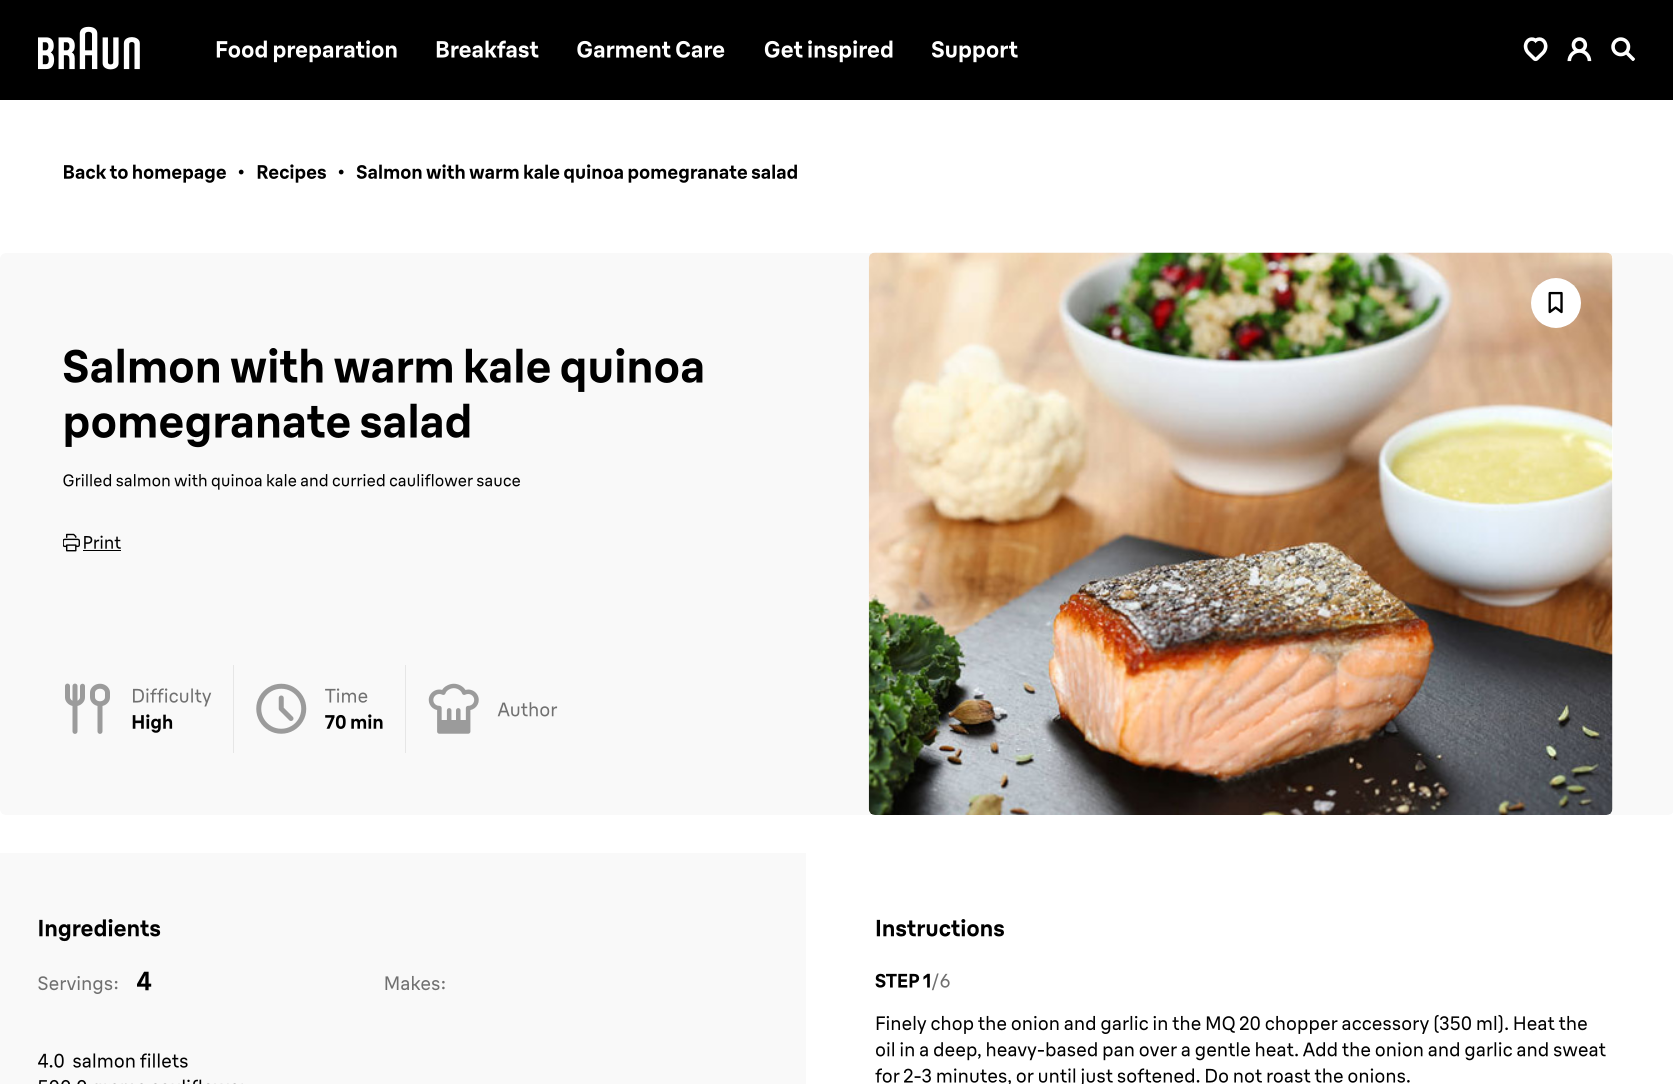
<svg xmlns="http://www.w3.org/2000/svg" width="1673" height="1084">
<rect width="100%" height="100%" fill="#fff"/>
<path fill="#000" d="M0 0h1673v100H0z"/>
<image href="1.png" x="38" y="26" width="102" height="44"/>
<image href="2.png" x="216" y="40" width="181" height="23"/>
<image href="3.png" x="436" y="40" width="103" height="18"/>
<image href="4.png" x="577" y="40" width="148" height="18"/>
<image href="5.png" x="764" y="40" width="129" height="23"/>
<image href="6.png" x="932" y="41" width="86" height="22"/>
<image href="7.png" x="1523" y="37" width="25" height="25"/>
<image href="8.png" x="1567" y="37" width="25" height="25"/>
<image href="9.png" x="1611" y="37" width="24" height="24"/>
<image href="10.png" x="64" y="164" width="162" height="19"/>
<image href="11.png" x="238" y="169" width="6" height="6"/>
<image href="12.png" x="257" y="164" width="69" height="19"/>
<image href="11.png" x="338" y="169" width="6" height="6"/>
<image href="13.png" x="356" y="164" width="441" height="19"/>
<rect fill="#f9f9f9" y="253" width="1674" height="562" rx="6"/>
<image href="14.png" x="63" y="348" width="640" height="44"/>
<image href="15.png" x="65" y="403" width="405" height="45"/>
<image href="16.png" x="63" y="474" width="457" height="16"/>
<image href="17.png" x="63" y="533" width="17" height="19"/>
<image href="18.png" x="84" y="535" width="37" height="14"/>
<path fill="#000" d="M83 550h38v1H83z"/>
<image href="19.png" x="65" y="683" width="45" height="51"/>
<image href="20.png" x="133" y="688" width="79" height="19"/>
<image href="21.png" x="132" y="714" width="41" height="19"/>
<path fill="#e6e6e6" d="M233 665h1v88H233z"/>
<image href="22.png" x="256" y="683" width="51" height="51"/>
<image href="23.png" x="325" y="688" width="43" height="15"/>
<image href="24.png" x="325" y="714" width="58" height="15"/>
<path fill="#e6e6e6" d="M405 665h1v88H405z"/>
<image href="25.png" x="428" y="683" width="51" height="51"/>
<image href="26.png" x="497" y="702" width="61" height="15"/>
<rect fill="#fff" x="869" y="253" width="744" height="562" rx="6"/>
<image href="27.png" x="868" y="252" width="745" height="563"/>
<circle fill="#fff" cx="1556" cy="303" r="25"/>
<image href="28.png" x="1548" y="291" width="15" height="23"/>
<path fill="#f9f9f9" d="M0 853h806v231H0z"/>
<image href="29.png" x="39" y="919" width="122" height="23"/>
<image href="30.png" x="38" y="976" width="80" height="18"/>
<image href="31.png" x="137" y="971" width="15" height="20"/>
<image href="32.png" x="385" y="975" width="60" height="16"/>
<image href="33.png" x="38" y="1053" width="150" height="15"/>
<image href="34.png" x="39" y="1079" width="204" height="5"/>
<image href="35.png" x="876" y="919" width="128" height="18"/>
<image href="36.png" x="875" y="973" width="55" height="15"/>
<image href="37.png" x="931" y="973" width="19" height="18"/>
<image href="38.png" x="876" y="1014" width="711" height="20"/>
<image href="39.png" x="876" y="1042" width="730" height="19"/>
<image href="40.png" x="875" y="1068" width="535" height="16"/>
</svg>
